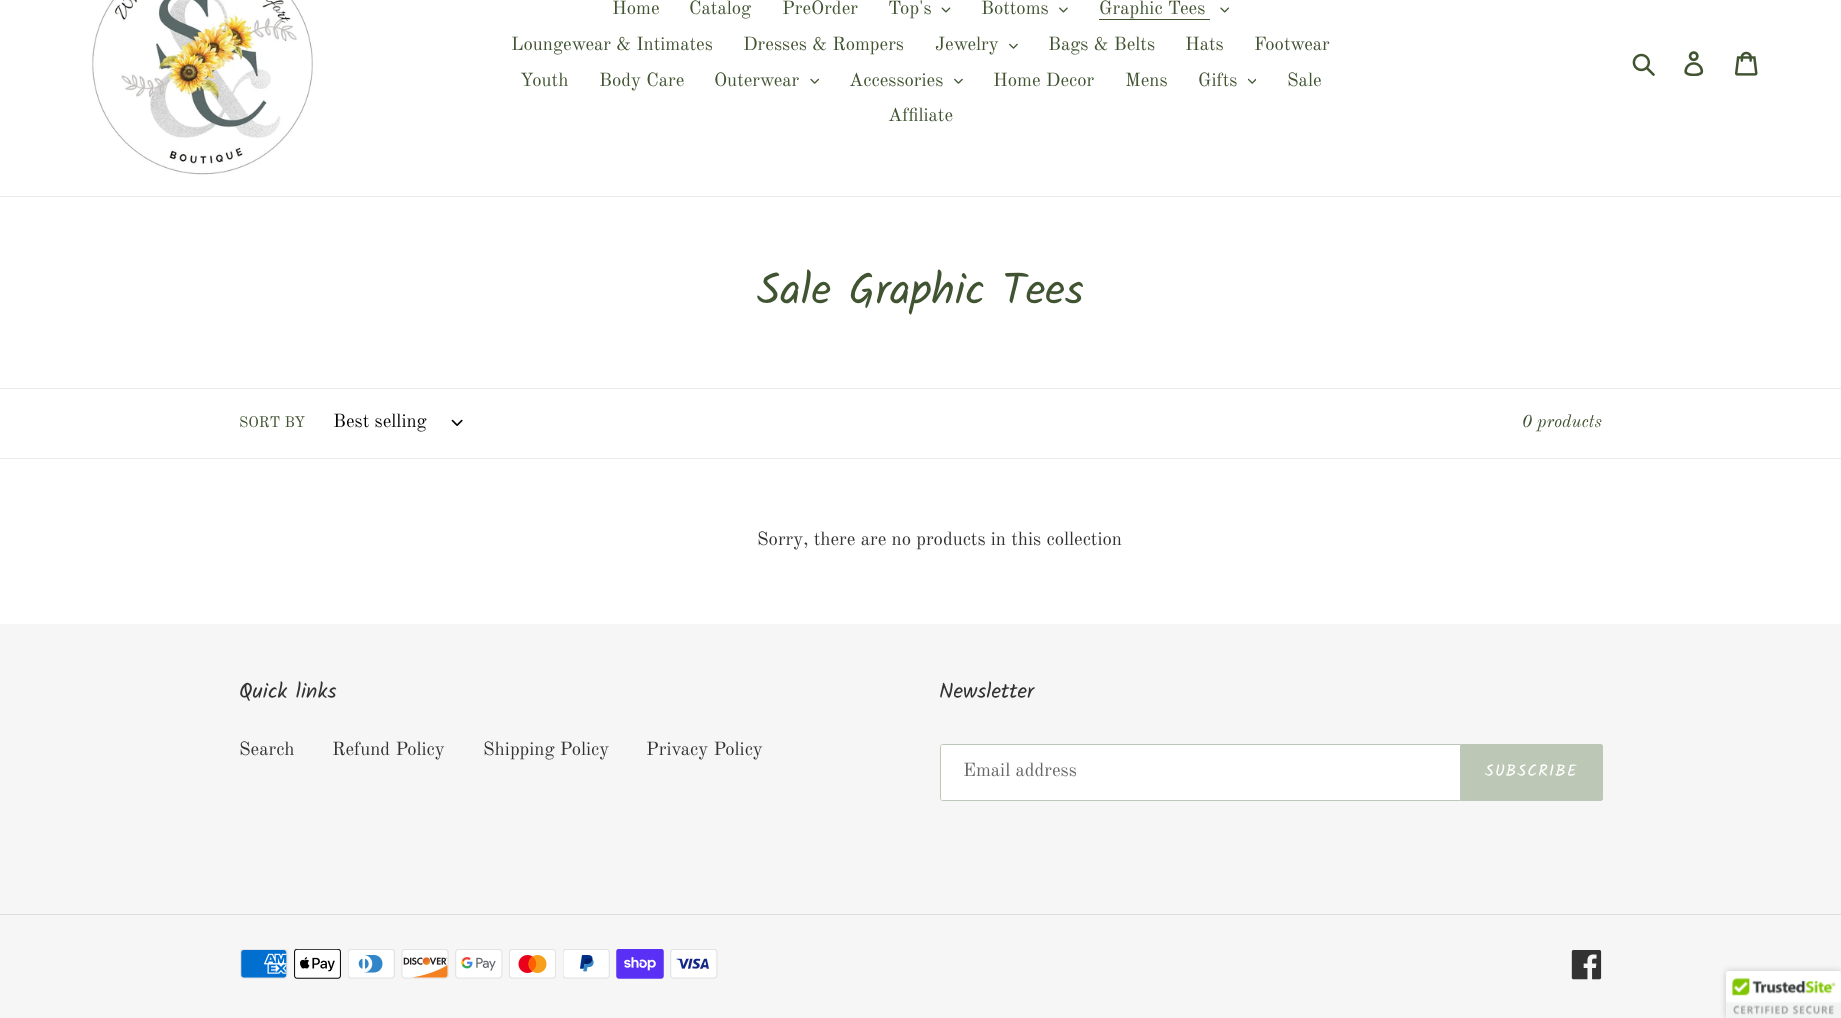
<svg xmlns="http://www.w3.org/2000/svg" width="1841" height="1018">
<style>
.a{font:18.75px Old Standard TT;fill:#415432}
.b{font:43.75px Kalam;fill:#415432}
.c{font:15px Old Standard TT;fill:#415432}
.d{font:18.75px Old Standard TT;fill:#000}
.e{font:italic 17.5px Old Standard TT;fill:#415432}
.f{font:18.75px Old Standard TT;fill:#333232}
.g{font:21.25px Kalam;fill:#333232}
.h{font:18.75px Old Standard TT;fill:#666}
.i{font:16.25px Kalam;letter-spacing:1.25px;fill:#fff}
</style>
<rect width="100%" height="100%" fill="#fff"/>
<path fill="#ebebeb" d="M0 196h1841v1H0z"/>
<image href="1.png" x="91" y="0" width="222" height="175"/>
<image href="2.png" x="941" y="7" width="10" height="6"/>
<image href="3.png" x="1059" y="7" width="9" height="6"/>
<path fill="#415432" d="M1099 19h111v1H1099z"/>
<image href="4.png" x="1220" y="7" width="9" height="6"/>
<image href="5.png" x="1009" y="43" width="9" height="6"/>
<image href="6.png" x="810" y="78" width="9" height="6"/>
<image href="5.png" x="954" y="78" width="9" height="6"/>
<image href="7.png" x="1248" y="78" width="8" height="6"/>
<image href="8.png" x="1632" y="53" width="23" height="23"/>
<image href="9.png" x="1684" y="51" width="20" height="25"/>
<image href="10.png" x="1735" y="51" width="23" height="25"/>
<path fill="#ebebeb" d="M0 388h1841v1H0z"/>
<path fill="#ebebeb" d="M0 458h1841v1H0z"/>
<image href="11.png" x="451" y="419" width="12" height="7"/>
<path fill="#f6f6f6" d="M0 624h1841v394H0z"/>
<path fill="#fff" stroke="#bdc7b5" d="M942.5 744.5h518v56h-518c-1 0-2-1-2-2v-52c0-1 1-2 2-2z"/>
<path fill="#bdc7b5" d="M1461 744h139.5c1.5 0 2.5 1 2.5 2.5v52c0 1.5-1 2.5-2.5 2.5h-139.5z"/>
<path fill="#ddd" d="M0 914h1841v1H0z"/>
<image href="12.png" x="240" y="949" width="48" height="30"/>
<image href="13.png" x="294" y="949" width="47" height="30"/>
<image href="14.png" x="348" y="949" width="47" height="30"/>
<image href="15.png" x="401" y="949" width="48" height="30"/>
<image href="16.png" x="455" y="949" width="48" height="30"/>
<image href="17.png" x="509" y="949" width="47" height="30"/>
<image href="18.png" x="563" y="949" width="47" height="30"/>
<image href="19.png" x="616" y="949" width="48" height="30"/>
<image href="20.png" x="670" y="949" width="48" height="30"/>
<image href="21.png" x="1571" y="950" width="31" height="30"/>
<rect fill="#00000033" filter="blur(3px)" x="1726" y="971" width="115" height="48" rx="2.5"/>
<path fill="#fff" d="M1728.5 971h112.5v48h-115v-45.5c0-1.5 1-2.5 2.5-2.5z"/>
<image href="22.png" x="1726" y="971" width="115" height="47"/>
<text class="a" x="612" y="14">Home</text>
<text class="a" x="689" y="14">Catalog</text>
<text class="a" x="782" y="14">PreOrder</text>
<text class="a" x="888" y="14">Top's</text>
<text class="a" x="981" y="14">Bottoms</text>
<text class="a" x="1099" y="14">Graphic Tees</text>
<text class="a" x="511" y="50">Loungewear &amp; Intimates</text>
<text class="a" x="743" y="50">Dresses &amp; Rompers</text>
<text class="a" x="935" y="50">Jewelry</text>
<text class="a" x="1048" y="50">Bags &amp; Belts</text>
<text class="a" x="1185" y="50">Hats</text>
<text class="a" x="1254" y="50">Footwear</text>
<text class="a" x="520" y="86">Youth</text>
<text class="a" x="599" y="86">Body Care</text>
<text class="a" x="714" y="86">Outerwear</text>
<text class="a" x="849" y="86">Accessories</text>
<text class="a" x="993" y="86">Home Decor</text>
<text class="a" x="1125" y="86">Mens</text>
<text class="a" x="1198" y="86">Gifts</text>
<text class="a" x="1287" y="86">Sale</text>
<text class="a" x="888" y="121">Affiliate</text>
<text class="b" x="757" y="304">Sale Graphic Tees</text>
<text class="c" x="239" y="427">SORT BY</text>
<text class="d" x="333" y="427">Best selling</text>
<text class="e" x="1522" y="427">0 products</text>
<text class="f" x="757" y="545">Sorry, there are no products in this collection</text>
<text class="g" x="239" y="698">Quick links</text>
<text class="f" x="239" y="755">Search</text>
<text class="f" x="332" y="755">Refund Policy</text>
<text class="f" x="483" y="755">Shipping Policy</text>
<text class="f" x="646" y="755">Privacy Policy</text>
<text class="g" x="939" y="698">Newsletter</text>
<text class="h" x="963" y="776">Email address</text>
<text class="i" x="1485" y="776">SUBSCRIBE</text>
</svg>
